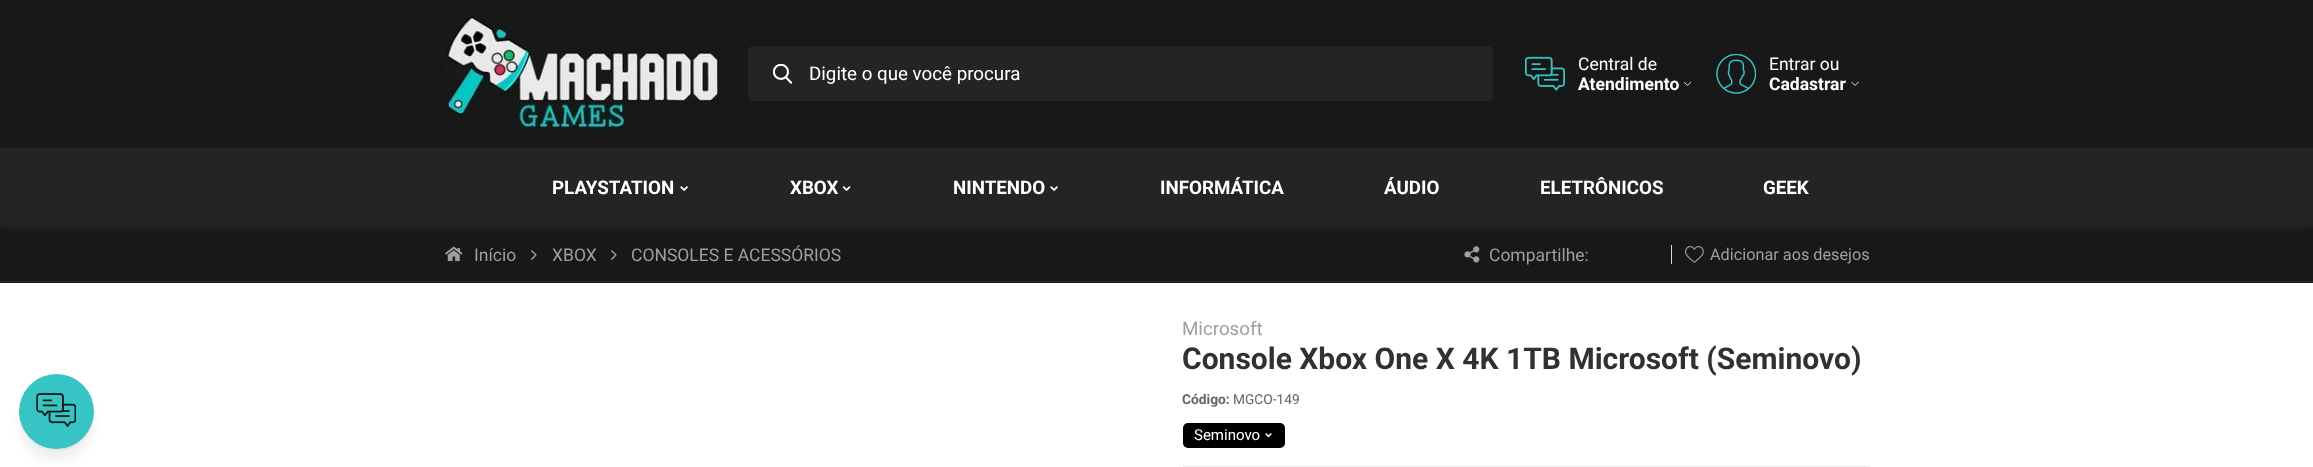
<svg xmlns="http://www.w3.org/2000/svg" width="2313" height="467">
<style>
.a{font:18.75px Roboto;fill:#fff}
.b{font:17.5px Roboto;fill:#fff}
.c{font:bold 17.5px Roboto;fill:#fff}
.d{font:bold 18.75px Roboto;fill:#fff}
.e{font:17.5px Roboto;fill:#9f9f9f}
.f{font:16.25px Roboto;fill:#9f9f9f}
.g{font:18.75px Roboto;fill:#9f9f9f}
.h{font:bold 30px Roboto;fill:#313131}
.i{font:bold 13.75px Roboto;fill:#646464}
.j{font:13.75px Roboto;fill:#646464}
.k{font:15px Roboto;fill:#fff}
</style>
<rect width="100%" height="100%" fill="#181818"/>
<path fill="#fff" d="M0 283h2313v184H0z"/>
<rect fill="#6767671a" filter="blur(5px)" x="19" y="386" width="75" height="75" rx="37.5"/>
<rect fill="#0000000a" filter="blur(0.5px)" x="19" y="376" width="75" height="75" rx="37.5"/>
<circle fill="#36c5c4" cx="56.5" cy="411.5" r="37.5"/>
<image href="1.png" x="36" y="393" width="40" height="34"/>
<path fill="#52525233" filter="blur(2.5px)" d="M0 150h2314v78H0z"/>
<path fill="#282828" d="M0 148h2313v1H0z"/>
<image href="2.png" x="445" y="15" width="274" height="118"/>
<rect fill="#242424" x="748" y="46" width="745" height="55" rx="5"/>
<image href="3.png" x="773" y="64" width="20" height="20"/>
<image href="4.png" x="1525" y="56" width="40" height="35"/>
<image href="5.png" x="1684" y="81" width="7" height="5"/>
<image href="6.png" x="1716" y="54" width="40" height="40"/>
<image href="7.png" x="1851" y="81" width="8" height="5"/>
<path fill="#242424" d="M0 149h2313v77H0z"/>
<image href="8.png" x="680" y="186" width="8" height="5"/>
<image href="9.png" x="842" y="186" width="9" height="5"/>
<image href="8.png" x="1050" y="186" width="8" height="5"/>
<path fill="#282828" d="M0 281h2313v1H0z"/>
<image href="10.png" x="445" y="246" width="18" height="16"/>
<image href="11.png" x="531" y="250" width="6" height="10"/>
<image href="11.png" x="611" y="250" width="6" height="10"/>
<image href="12.png" x="1464" y="246" width="16" height="17"/>
<path fill="#d6d6d6" d="M1671 245h1v19H1671z"/>
<image href="13.png" x="1685" y="246" width="19" height="17"/>
<path fill="#eaeaea" d="M1183 466h687v1H1183z"/>
<rect fill="#000" x="1183" y="423" width="102" height="25" rx="5"/>
<image href="14.png" x="1265" y="433" width="7" height="5"/>
<text class="a" x="809" y="80">Digite o que você procura</text>
<text class="b" x="1578" y="70">Central de</text>
<text class="c" x="1578" y="90">Atendimento</text>
<text class="b" x="1769" y="70">Entrar ou</text>
<text class="c" x="1769" y="90">Cadastrar</text>
<text class="d" x="552" y="194">PLAYSTATION</text>
<text class="d" x="790" y="194">XBOX</text>
<text class="d" x="953" y="194">NINTENDO</text>
<text class="d" x="1160" y="194">INFORMÁTICA</text>
<text class="d" x="1384" y="194">ÁUDIO</text>
<text class="d" x="1540" y="194">ELETRÔNICOS</text>
<text class="d" x="1763" y="194">GEEK</text>
<text class="e" x="474" y="261">Início</text>
<text class="e" x="552" y="261">XBOX</text>
<text class="e" x="631" y="261">CONSOLES E ACESSÓRIOS</text>
<text class="e" x="1489" y="261">Compartilhe:</text>
<text class="f" x="1710" y="260">Adicionar aos desejos</text>
<text class="g" x="1182" y="335">Microsoft</text>
<text class="h" x="1182" y="369">Console Xbox One X 4K 1TB Microsoft (Seminovo)</text>
<text class="i" x="1182" y="404">Código:</text>
<text class="j" x="1233" y="404">MGCO-149</text>
<text class="k" x="1194" y="440">Seminovo</text>
</svg>
